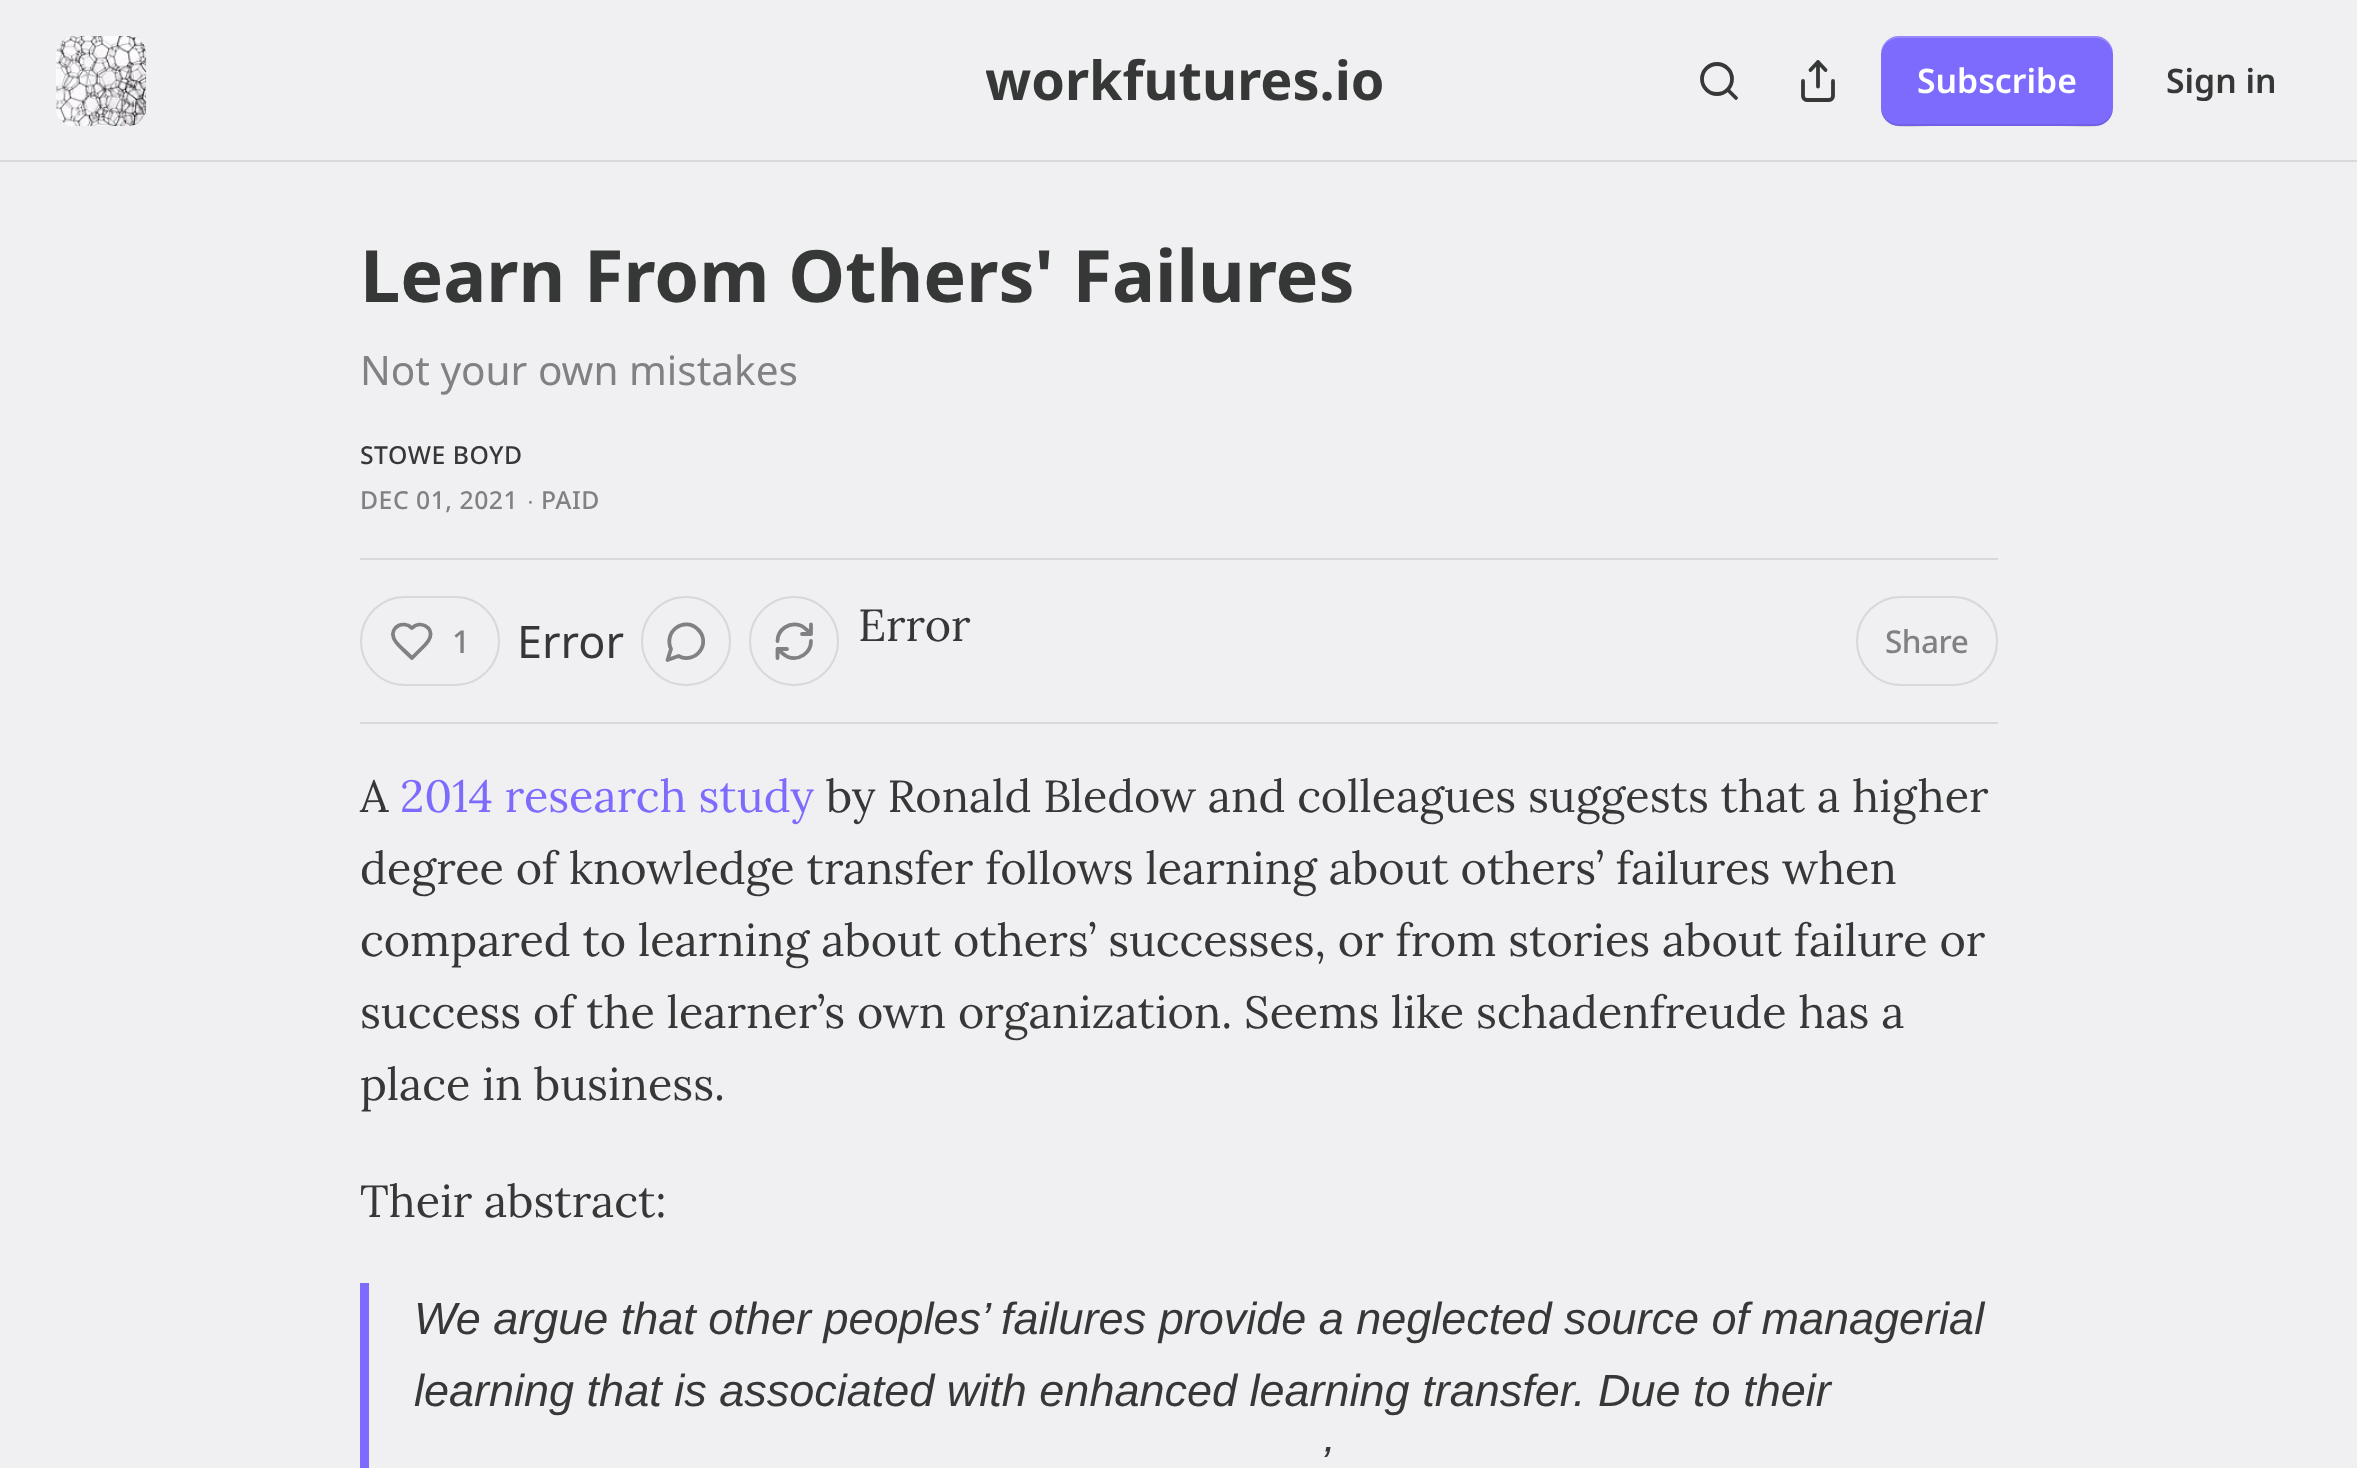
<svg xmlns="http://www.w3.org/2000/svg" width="2357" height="1468">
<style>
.a{font:bold 54px Noto Sans;fill:#363737}
.b{font:600 33.75px Noto Sans;fill:#fff}
.c{font:600 33.75px Noto Sans;fill:#363737}
.d{font:bold 72px Noto Sans;fill:#363737}
.e{font:40.5px Noto Sans;fill:#808182}
.f{font:500 24.75px Noto Sans;letter-spacing:0.5px;fill:#363737}
.g{font:500 24.75px Noto Sans;letter-spacing:0.5px;fill:#808182}
.h{font:24.75px Liberation Sans;letter-spacing:0.5px;fill:#808182}
.i{font:500 31.5px Noto Sans;letter-spacing:-0.5px;fill:#808182}
.j{font:45px Noto Sans;fill:#363737}
.k{font:45px Lora;fill:#363737}
.l{font:45px Lora;fill:#7d6bfe}
.m{font:italic 45px Liberation Sans;fill:#363737}
</style>
<defs>
<clipPath id="clip1"><path d="M986 45h398v72H986z"/></clipPath>
</defs>
<rect width="100%" height="100%" fill="#f0f0f2"/>
<path fill="#d8d8da" d="M0 160h2357v2H0z"/>
<rect fill="#fff" x="56" y="36" width="90" height="90" rx="18"/>
<image href="1.png" x="56" y="36" width="91" height="90"/>
<circle fill="none" stroke="#363737" stroke-width="3.8" cx="1717" cy="79" r="15"/>
<path fill="none" stroke="#363737" stroke-width="3.8" stroke-linecap="round" stroke-linejoin="round" d="M1736 98l-8-8"/>
<path fill="none" stroke="#363737" stroke-width="3.8" stroke-linecap="round" stroke-linejoin="round" d="M1803 81v15c0 2 1.5 4 4 4h22c2.5 0 4-2 4-4v-15m-7.5-11l-7.5-8l-7.5 8m7.5-8v24.5"/>
<rect fill="#7d6bfe" x="1881" y="36" width="232" height="90" rx="18"/>
<path fill="#0000001a" d="M1881 106c0 28 33 20 51 20h130c18 0 51 8 51-20c0 10-8 18-18 18h-196c-10 0-18-8-18-18z"/>
<path fill="#ffffff33" d="M1899 38h196c10 0 18 8 18 18c0-28-33-20-51-20h-130c-18 0-51-8-51 20c0-10 8-18 18-18z"/>
<path fill="#d8d8da" d="M360 558h1638v2H360z"/>
<path fill="#d8d8da" d="M360 722h1638v2H360z"/>
<rect fill="none" stroke="#d8d8da" stroke-width="2" x="361" y="597" width="138" height="88" rx="44"/>
<path fill="none" stroke="#808182" stroke-width="3.8" stroke-linecap="round" stroke-linejoin="round" d="M425 645c2-2 4-4.5 5-7.5c3.5-10.5-10-17.5-18-9.5c-8.5-8-22-1-18.5 9.5c1.5 5 6 8.5 9.5 12l9 8.5z"/>
<circle fill="none" stroke="#d8d8da" stroke-width="2" cx="686" cy="641" r="44"/>
<path fill="none" stroke="#808182" stroke-width="3.8" stroke-linecap="round" stroke-linejoin="round" d="M678.5 656c7.5 4 16.5 2 21.5-5c5-6.5 4-16-2-21.5c-5.5-6-15-7-21.5-2c-7 5-9 14-5.5 21.5l-3.5 11z"/>
<circle fill="none" stroke="#d8d8da" stroke-width="2" cx="794" cy="641" r="44"/>
<path fill="none" stroke="#808182" stroke-width="3.8" stroke-linecap="round" stroke-linejoin="round" d="M811 624.5v9.5m0 0h-9m9 0c-3-3-6.5-7-10.5-8.5c-11-4-23 4-23 15.5m0 17v-9m0 0h9.5m-9.5 0c3 2.5 6.5 6.5 10.5 8c11 4 23-4 23-16"/>
<rect fill="none" stroke="#d8d8da" stroke-width="2" x="1857" y="597" width="140" height="88" rx="44"/>
<path fill="#7d6bfe" d="M360 1283h9v185H360z"/>
<g clip-path="url(#clip1)">
<text class="a" x="985" y="100">workfutures.io</text>
</g>
<text class="b" x="1917" y="93">Subscribe</text>
<text class="c" x="2166" y="93">Sign in</text>
<text class="d" x="360" y="302">Learn From Others' Failures</text>
<text class="e" x="360" y="385">Not your own mistakes</text>
<text class="f" x="360" y="464">STOWE BOYD</text>
<text class="g" x="360" y="509">DEC 01, 2021</text>
<text class="h" x="527" y="509">∙</text>
<text class="g" x="541" y="509">PAID</text>
<text class="i" x="452" y="653">1</text>
<text class="j" x="517" y="658">Error</text>
<text class="k" x="858" y="641">Error</text>
<text class="i" x="1885" y="653">Share</text>
<text class="k" x="360" y="812">A</text>
<text class="l" x="400" y="812">2014 research study</text>
<text class="k" x="826" y="812">by Ronald Bledow and colleagues suggests that a higher</text>
<text class="k" x="360" y="884">degree of knowledge transfer follows learning about others’ failures when</text>
<text class="k" x="360" y="956">compared to learning about others’ successes, or from stories about failure or</text>
<text class="k" x="360" y="1028">success of the learner’s own organization. Seems like schadenfreude has a</text>
<text class="k" x="360" y="1100">place in business.</text>
<text class="k" x="360" y="1217">Their abstract:</text>
<text class="m" x="414" y="1334">We argue that other peoples’ failures provide a neglected source of managerial</text>
<text class="m" x="414" y="1406">learning that is associated with enhanced learning transfer. Due to their</text>
<text class="m" x="1320" y="1478">’</text>
</svg>
